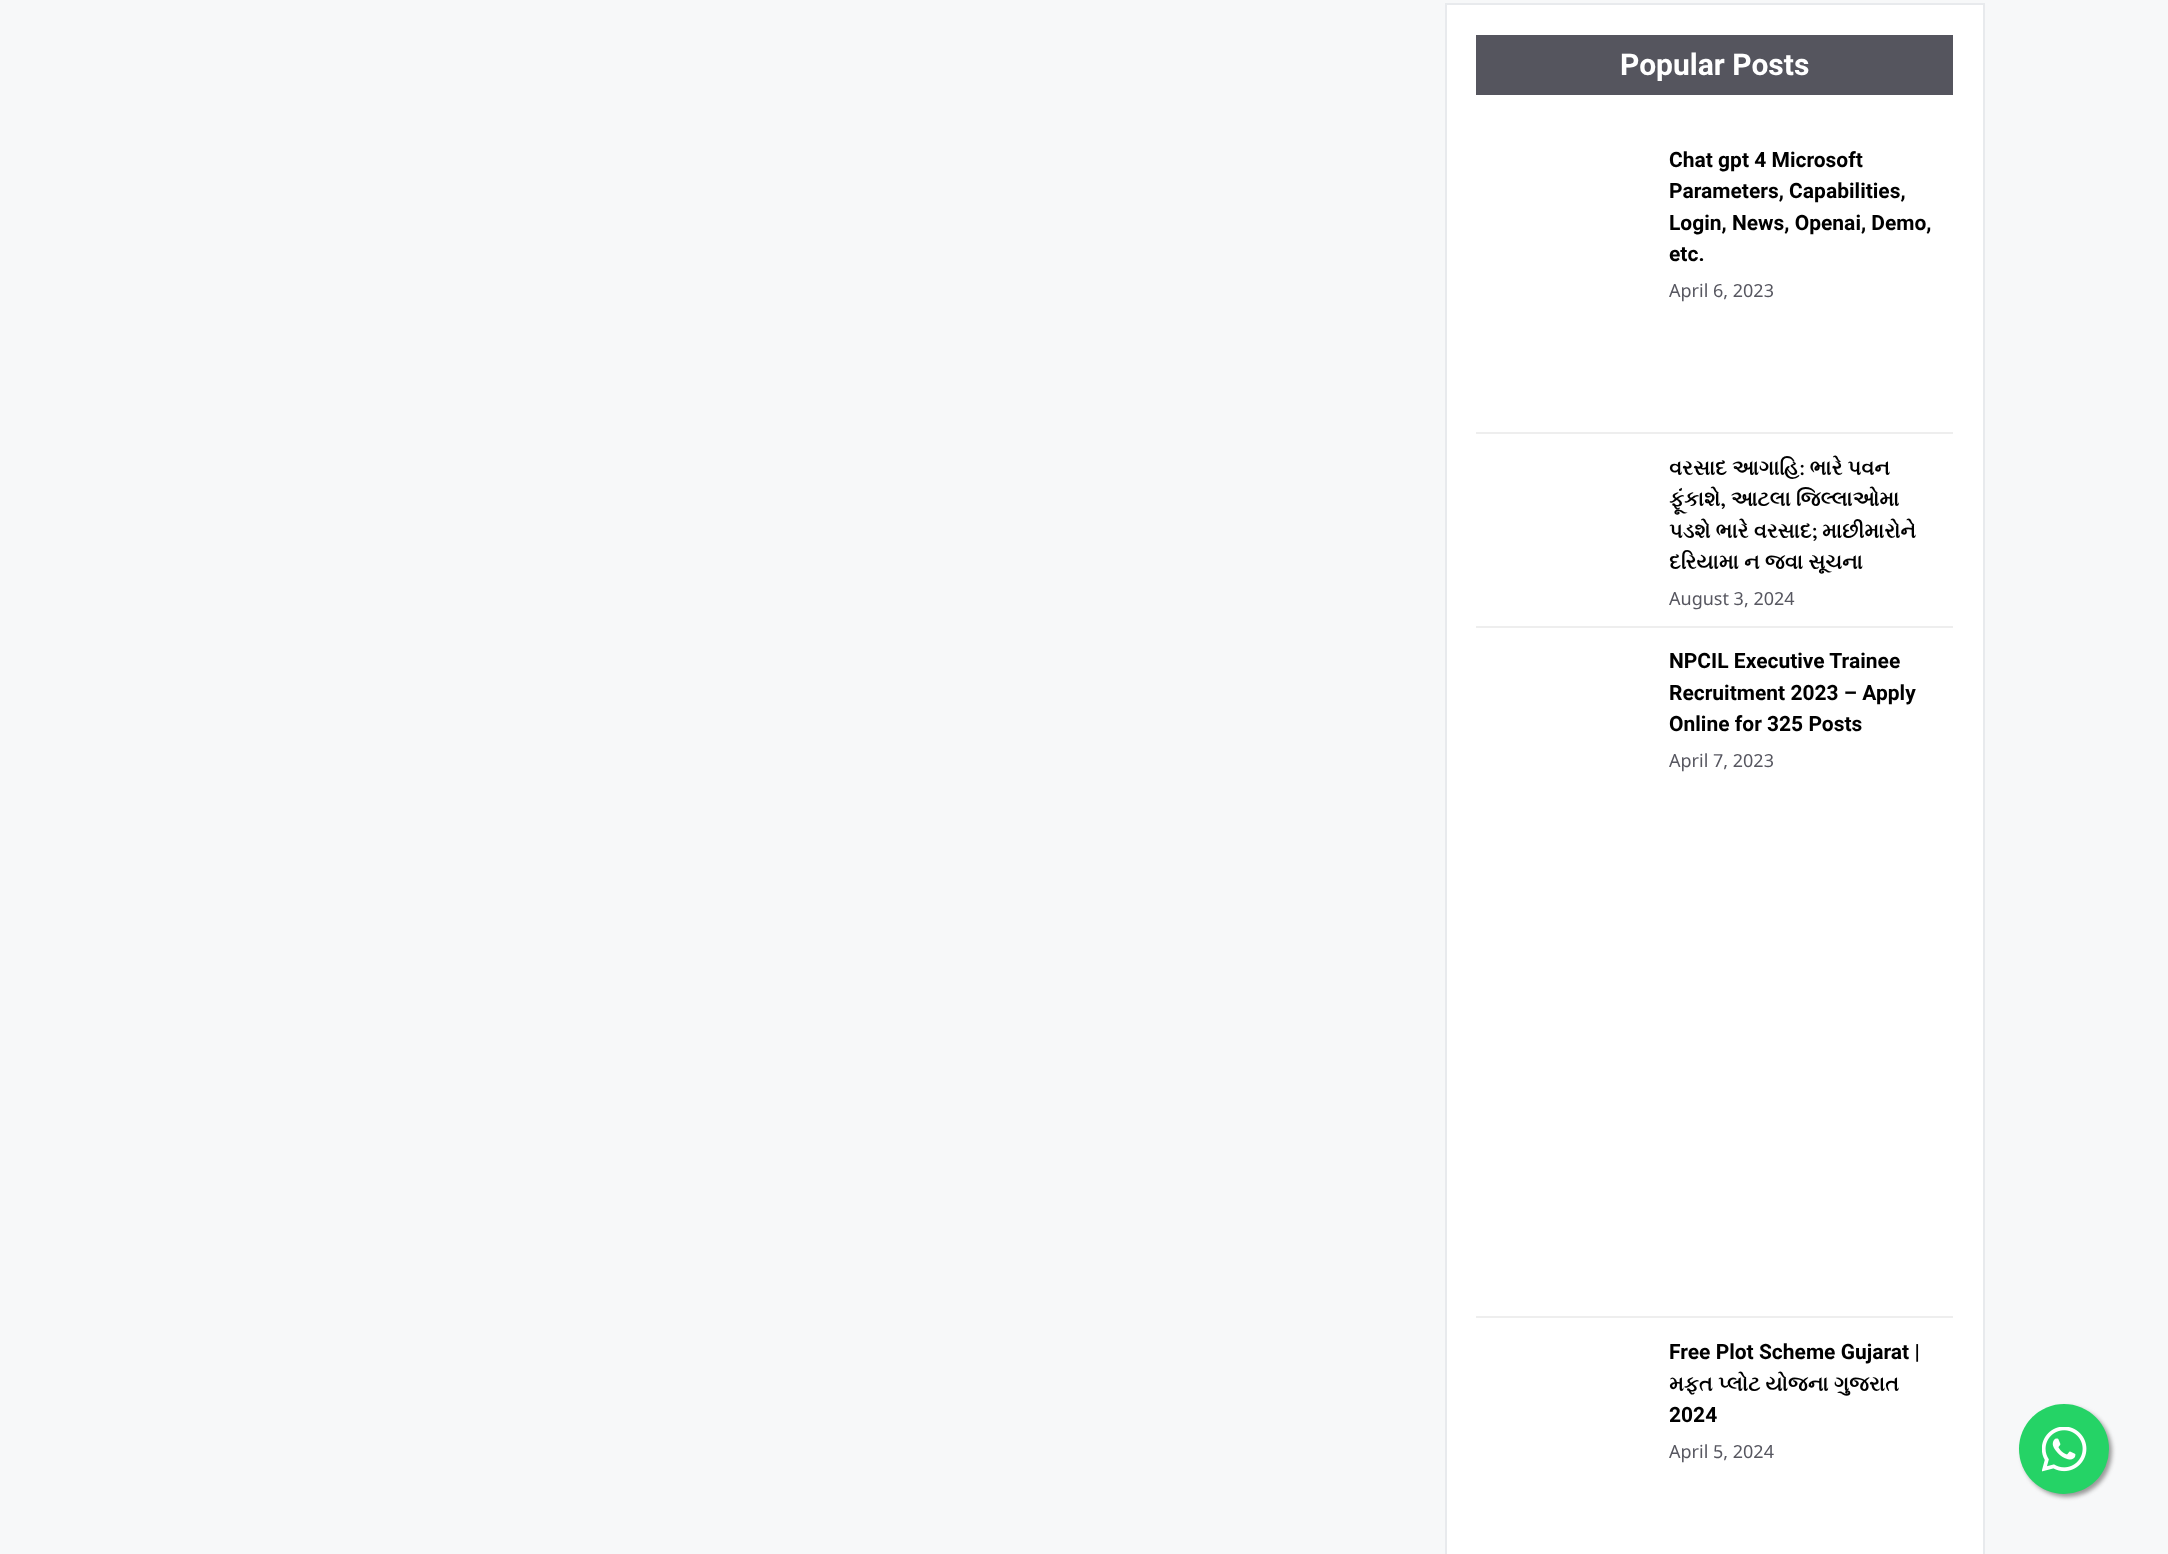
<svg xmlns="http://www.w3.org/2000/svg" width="2168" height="1554">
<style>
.a{font:bold 30px Roboto;fill:#fff}
.b{font:bold 21px Roboto;fill:#000}
.c{font:18px Noto Sans;fill:#575760}
.d{font:bold 21px FreeSerif;fill:#000}
</style>
<rect width="100%" height="100%" fill="#f7f8f9"/>
<path fill="#fff" stroke="#e8eaed" stroke-width="2" d="M1446 4h538v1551H1446z"/>
<path fill="#55555e" d="M1476 35h477v60H1476z"/>
<path fill="#eee" d="M1476 432h477v2H1476z"/>
<path fill="#eee" d="M1476 626h477v2H1476z"/>
<path fill="#eee" d="M1476 1316h477v2H1476z"/>
<rect fill="#999" filter="blur(2px)" x="2022" y="1407" width="90" height="90" rx="45"/>
<circle fill="#25d366" cx="2064" cy="1449" r="45"/>
<image href="1.png" x="2042" y="1427" width="45" height="45"/>
<text class="a" x="1620" y="75">Popular Posts</text>
<text class="b" x="1669" y="167">Chat gpt 4 Microsoft</text>
<text class="b" x="1669" y="198">Parameters, Capabilities,</text>
<text class="b" x="1669" y="230">Login, News, Openai, Demo,</text>
<text class="b" x="1669" y="261">etc.</text>
<text class="c" x="1669" y="297">April 6, 2023</text>
<text class="d" x="1669" y="475">વરસાદ આગાહિ: ભારે પવન</text>
<text class="d" x="1669" y="506">ફૂંકાશે, આટલા જિલ્લાઓમા</text>
<text class="d" x="1669" y="538">પડશે ભારે વરસાદ; માછીમારોને</text>
<text class="d" x="1669" y="569">દરિયામા ન જવા સૂચના</text>
<text class="c" x="1669" y="605">August 3, 2024</text>
<text class="b" x="1669" y="668">NPCIL Executive Trainee</text>
<text class="b" x="1669" y="700">Recruitment 2023 – Apply</text>
<text class="b" x="1669" y="731">Online for 325 Posts</text>
<text class="c" x="1669" y="767">April 7, 2023</text>
<text class="b" x="1669" y="1359">Free Plot Scheme Gujarat |</text>
<text class="d" x="1669" y="1391">મફત પ્લોટ યોજના ગુજરાત</text>
<text class="b" x="1669" y="1422">2024</text>
<text class="c" x="1669" y="1458">April 5, 2024</text>
</svg>
